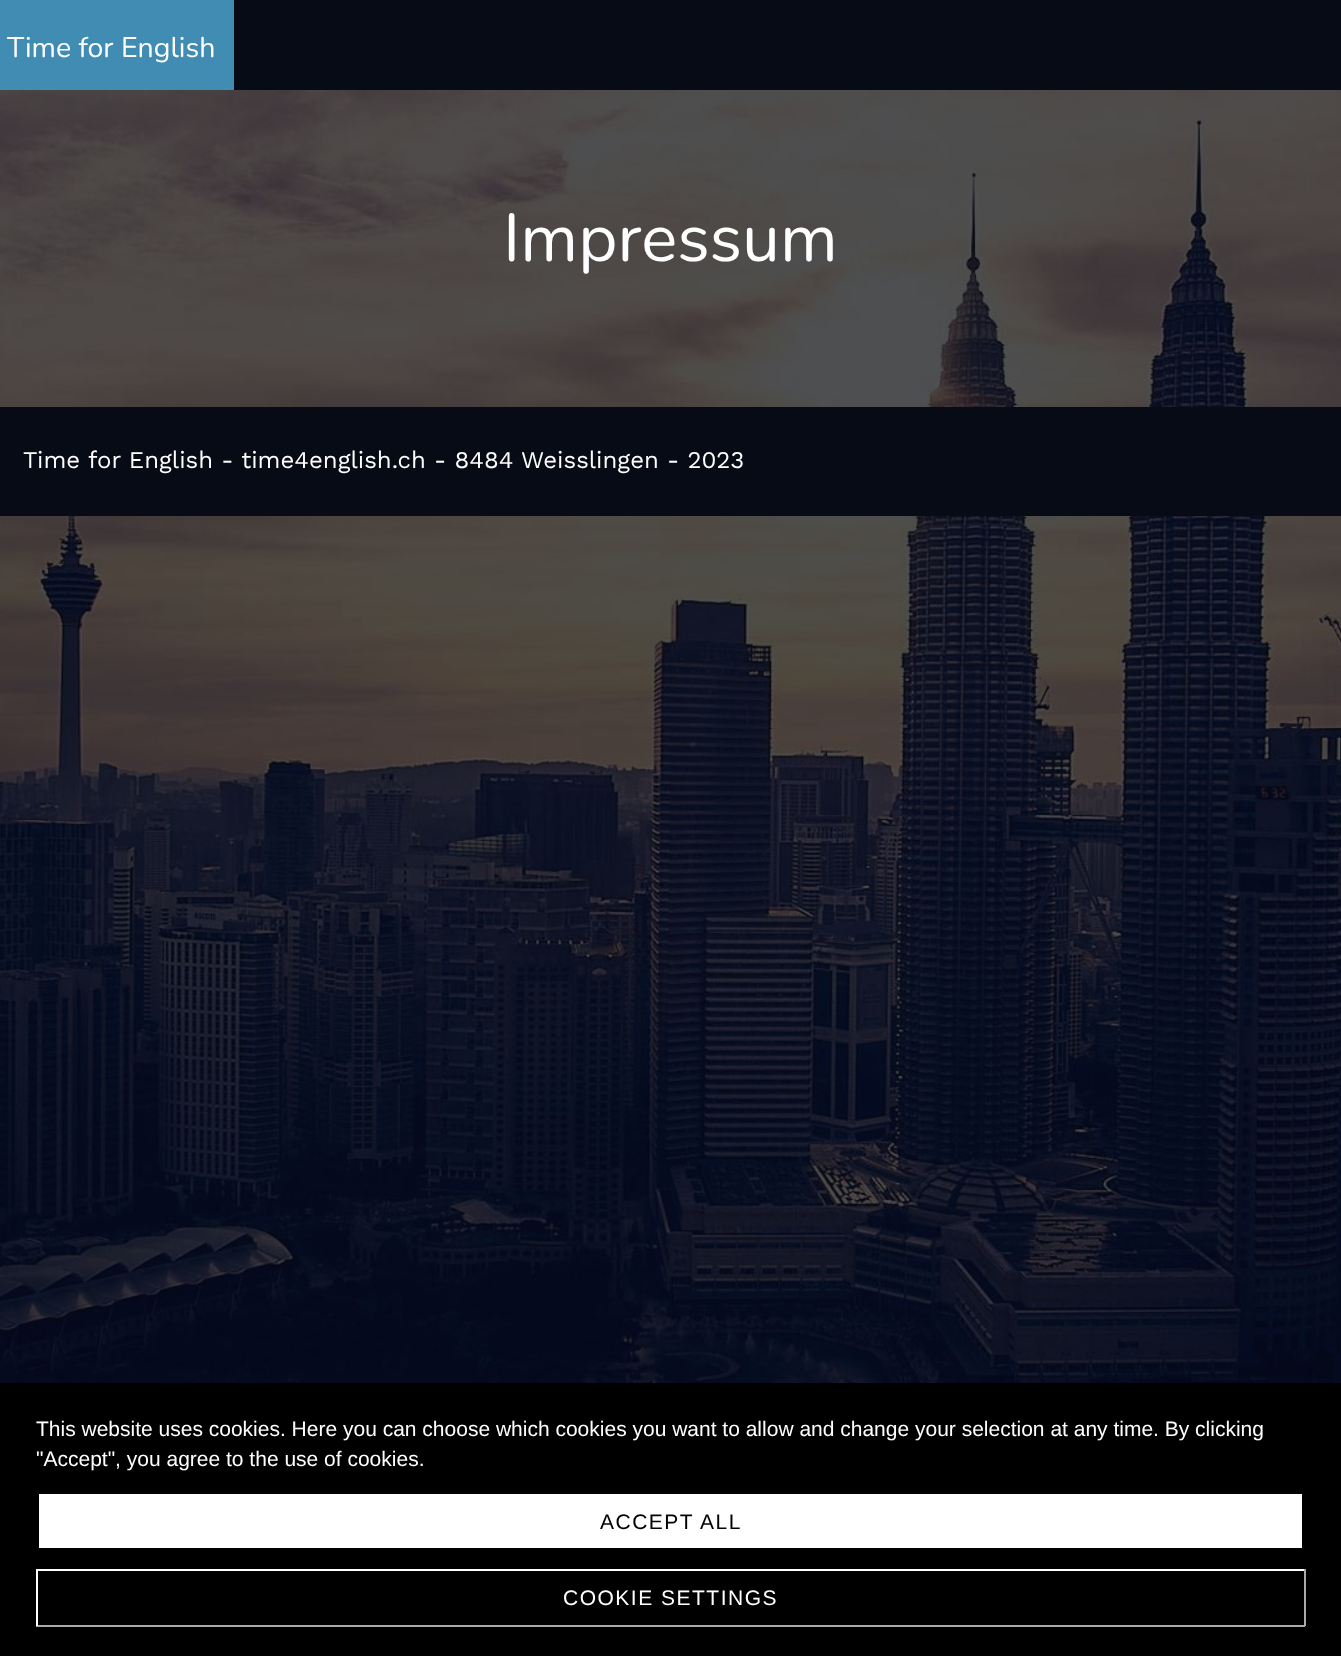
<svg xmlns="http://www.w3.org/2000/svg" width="1341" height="1656">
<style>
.a{font:28.5px Nunito;fill:#fff}
.b{font:67.5px Nunito;fill:#fff}
.c{font:24px Work Sans;fill:#fff}
.d{font:21px Liberation Sans;fill:#fff}
.e{font:21px Liberation Sans;letter-spacing:1.5px;fill:#000}
.f{font:21px Liberation Sans;letter-spacing:1.5px;fill:#fff}
</style>
<rect width="100%" height="100%" fill="#070b16"/>
<path fill="#418cb3" d="M0 0h234v90H0z"/>
<image href="1.png" x="0" y="90" width="1341" height="1293"/>
<path fill="#070b16" d="M0 407h1341v109H0z"/>
<path fill="#000" d="M0 1383h1341v273H0z"/>
<path fill="#fff" d="M39 1494h1263v54H39z"/>
<path fill="#fff" d="M36 1569h1269v2H36z"/>
<path fill="#aaa" d="M1304 1569h2v57H1304z"/>
<path fill="#aaa" d="M36 1625h1269v2H36z"/>
<path fill="#fff" d="M36 1569h2v57H36z"/>
<text class="a" x="7" y="57">Time for English</text>
<text class="b" x="503" y="261">Impressum</text>
<text class="c" x="23" y="468">Time for English - time4english.ch - 8484 Weisslingen - 2023</text>
<text class="d" x="36" y="1436">This website uses cookies. Here you can choose which cookies you want to allow and change your selection at any time. By clicking</text>
<text class="d" x="36" y="1466">"Accept", you agree to the use of cookies.</text>
<text class="e" x="600" y="1529">ACCEPT ALL</text>
<text class="f" x="563" y="1605">COOKIE SETTINGS</text>
</svg>
